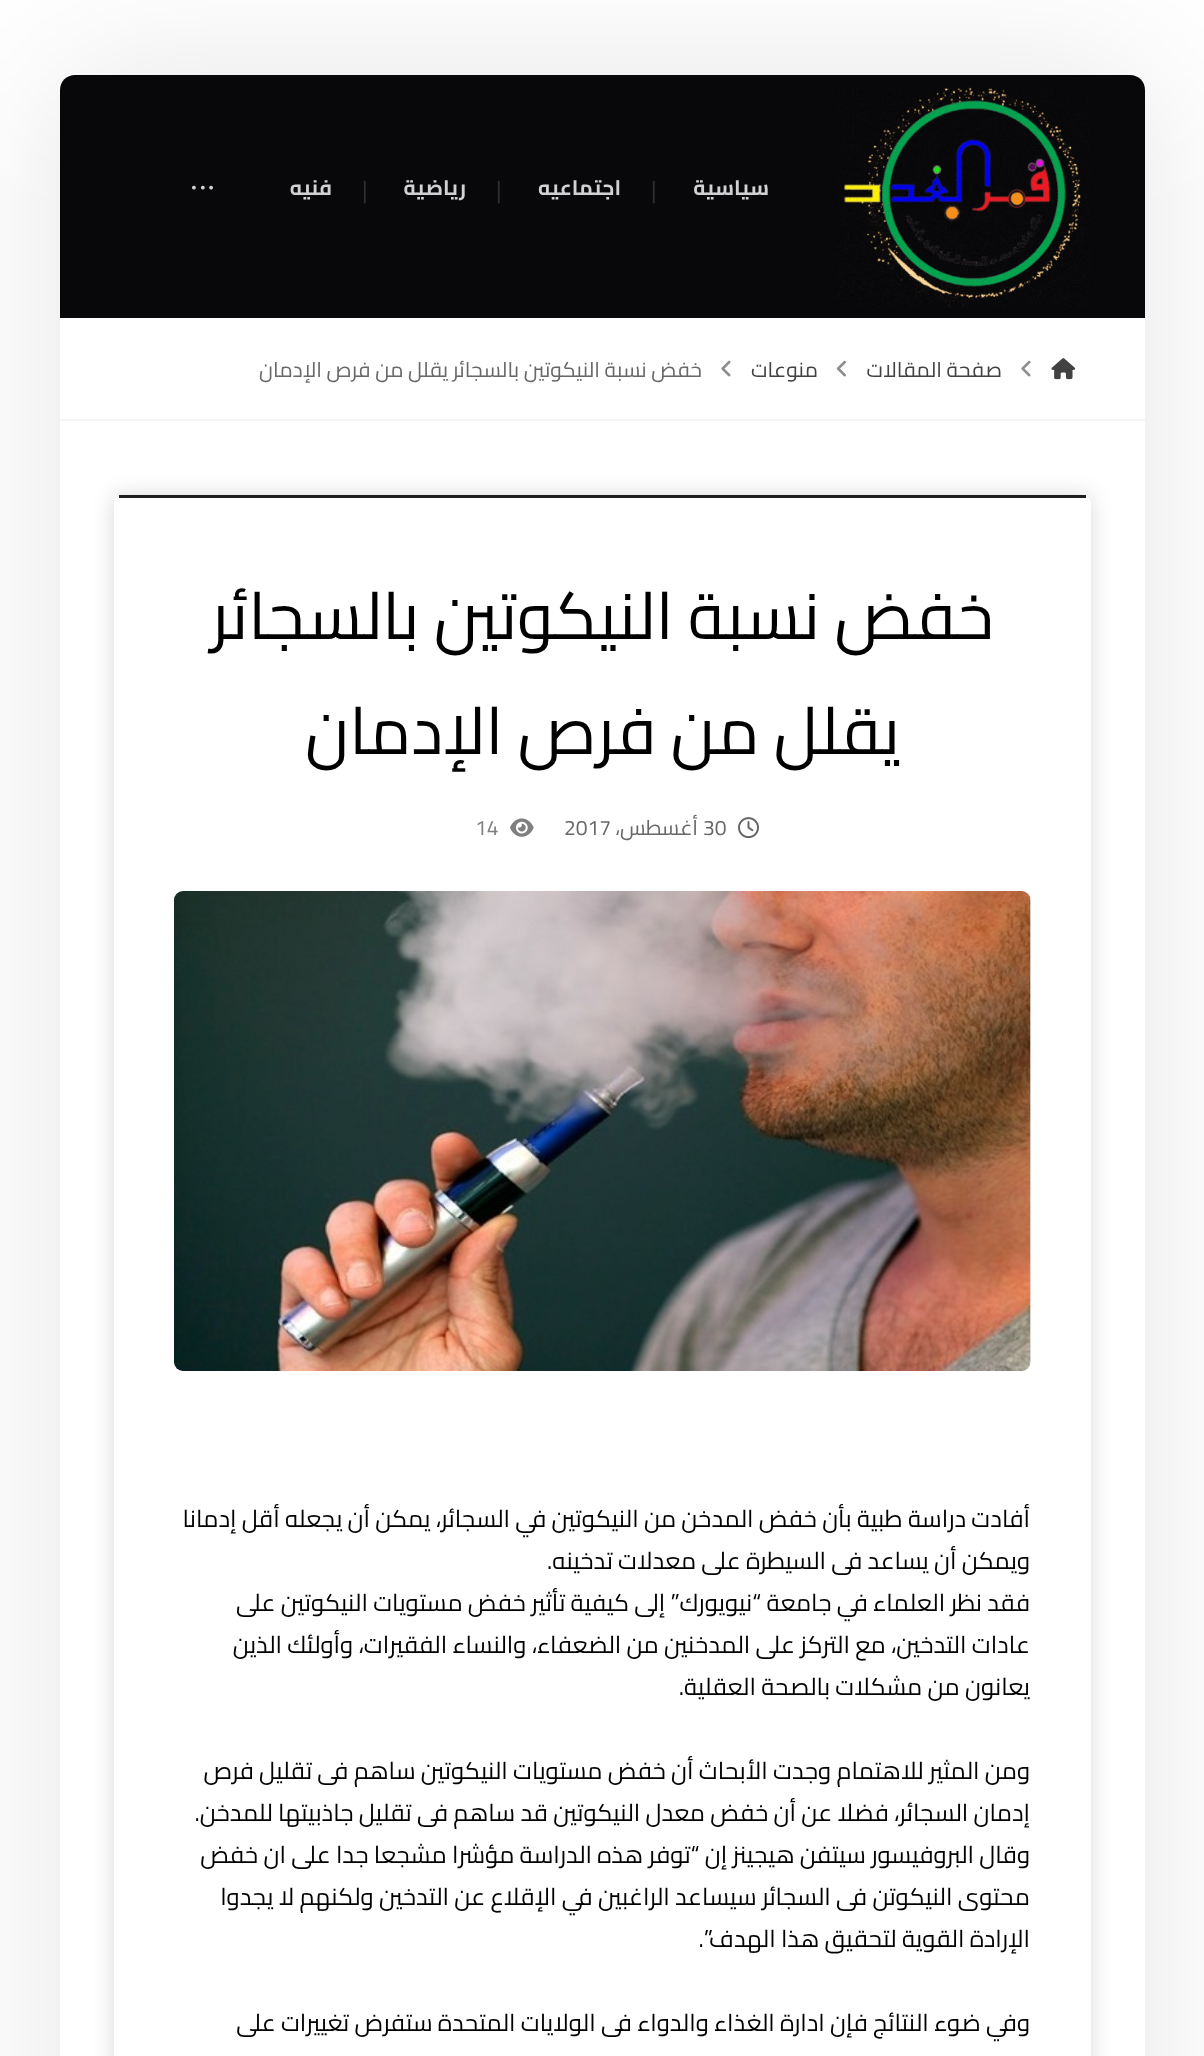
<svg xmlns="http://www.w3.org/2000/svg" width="1204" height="2056">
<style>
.a{font:bold 21px Cairo;direction:rtl;fill:#d1d1d1}
.b{font:24px Cairo;fill:#2d2d30}
.c{font:21px Cairo;direction:rtl;fill:#424242}
.d{font:21px Cairo;direction:rtl;fill:#686868}
.e{font:66px Cairo;direction:rtl;fill:#000}
.f{font:21px Cairo;fill:#686868}
.g{font:21px Cairo;fill:#808080}
.h{font:24px Cairo;direction:rtl;fill:#000}
</style>
<defs>
<clipPath id="clip1"><path d="M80 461h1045v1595h-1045zm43 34h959c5 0 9 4 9 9v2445c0 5-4 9-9 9h-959c-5 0-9-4-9-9v-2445c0-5 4-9 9-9z" clip-rule="evenodd"/></clipPath>
</defs>
<rect width="100%" height="100%" fill="#fff"/>
<rect fill="#0000001a" filter="blur(75px)" x="60" y="75" width="1085" height="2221" rx="15"/>
<rect fill="#fff" x="60" y="75" width="1085" height="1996" rx="15"/>
<path fill="#08080b" d="M75 75h1055c8.5 0 15 6.5 15 15v228h-1085v-228c0-8.5 6.5-15 15-15z"/>
<image href="1.png" x="835" y="87" width="256" height="221"/>
<image href="2.png" x="192" y="185" width="21" height="5"/>
<path fill="#f4f4f4" d="M60 419h1085v2H60z"/>
<image href="3.png" x="1051" y="358" width="25" height="22"/>
<image href="4.png" x="1021" y="360" width="10" height="17"/>
<image href="5.png" x="836" y="360" width="10" height="17"/>
<image href="4.png" x="721" y="360" width="10" height="17"/>
<g clip-path="url(#clip1)">
<rect fill="#00000026" filter="blur(11px)" x="114" y="495" width="977" height="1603" rx="9"/>
</g>
<path fill="#1d1e20" d="M119 495h967v3H119z"/>
<image href="6.png" x="738" y="817" width="21" height="22"/>
<image href="7.png" x="510" y="818" width="24" height="19"/>
<rect fill="#eee" x="174" y="891" width="857" height="480" rx="9"/>
<image href="8.png" x="174" y="891" width="857" height="480"/>
<text class="a" x="769" y="195">سياسية</text>
<text class="b" x="651" y="198">|</text>
<text class="a" x="621" y="195">اجتماعيه</text>
<text class="b" x="496" y="198">|</text>
<text class="a" x="466" y="195">رياضية</text>
<text class="b" x="362" y="198">|</text>
<text class="a" x="332" y="195">فنيه</text>
<text class="c" x="1002" y="377">صفحة المقالات</text>
<text class="c" x="818" y="377">منوعات</text>
<text class="d" x="702" y="377">خفض نسبة النيكوتين بالسجائر يقلل من فرص الإدمان</text>
<text class="e" x="994" y="639">خفض نسبة النيكوتين بالسجائر</text>
<text class="e" x="900" y="754">يقلل من فرص الإدمان</text>
<text class="f" x="703" y="835">30</text>
<text class="d" x="698" y="835">أغسطس،</text>
<text class="f" x="564" y="835">2017</text>
<text class="g" x="475" y="835">14</text>
<text class="h" x="1030" y="1527">أفادت دراسة طبية بأن خفض المدخن من النيكوتين في السجائر، يمكن أن يجعله أقل إدمانا</text>
<text class="h" x="1030" y="1569">ويمكن أن يساعد فى السيطرة على معدلات تدخينه.</text>
<text class="h" x="1030" y="1611">فقد نظر العلماء في جامعة “نيويورك” إلى كيفية تأثير خفض مستويات النيكوتين على</text>
<text class="h" x="1030" y="1653">عادات التدخين، مع التركز على المدخنين من الضعفاء، والنساء الفقيرات، وأولئك الذين</text>
<text class="h" x="1030" y="1695">يعانون من مشكلات بالصحة العقلية.</text>
<text class="h" x="1030" y="1779">ومن المثير للاهتمام وجدت الأبحاث أن خفض مستويات النيكوتين ساهم فى تقليل فرص</text>
<text class="h" x="1030" y="1821">إدمان السجائر، فضلا عن أن خفض معدل النيكوتين قد ساهم فى تقليل جاذبيتها للمدخن.</text>
<text class="h" x="1030" y="1863">وقال البروفيسور سيتفن هيجينز إن “توفر هذه الدراسة مؤشرا مشجعا جدا على ان خفض</text>
<text class="h" x="1030" y="1905">محتوى النيكوتن فى السجائر سيساعد الراغبين في الإقلاع عن التدخين ولكنهم لا يجدوا</text>
<text class="h" x="1030" y="1947">الإرادة القوية لتحقيق هذا الهدف”.</text>
<text class="h" x="1030" y="2031">وفي ضوء النتائج فإن ادارة الغذاء والدواء فى الولايات المتحدة ستفرض تغييرات على</text>
</svg>
